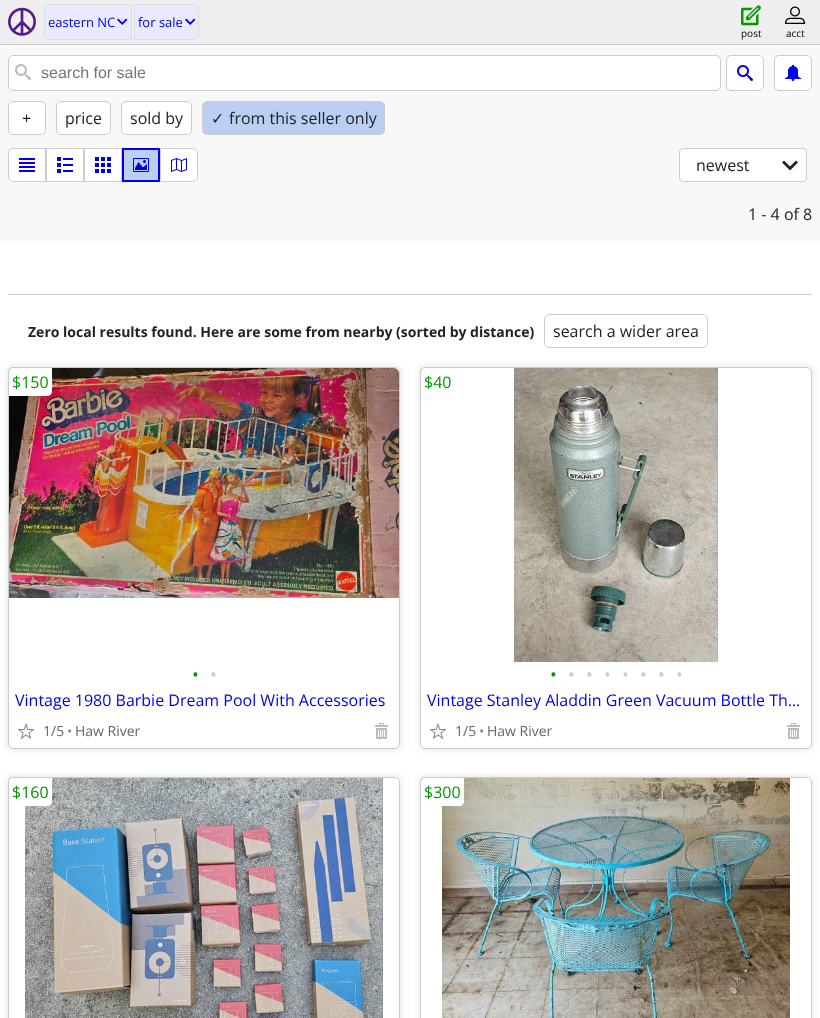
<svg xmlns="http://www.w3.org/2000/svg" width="820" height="1018">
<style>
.a{font:13px Open Sans;fill:#00e}
.b{font:10px Open Sans;fill:#000}
.c{font:16px Liberation Sans;fill:#757575}
.d{font:16px Open Sans;fill:#222}
.e{font:16px DejaVu Sans;fill:#222}
.f{font:bold 14px Open Sans;fill:#222}
.g{font:16px Open Sans;fill:#090}
.h{font:18px Open Sans;fill:#090}
.i{font:18px Open Sans;fill:#ccc}
.j{font:16px Open Sans;fill:#00e}
.k{font:14px Open Sans;fill:#666}
.l{font:14px Open Sans;fill:#888}
</style>
<defs>
<clipPath id="clip1"><path d="M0 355h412v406h-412zm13 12h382c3 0 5 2 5 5v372c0 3-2 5-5 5h-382c-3 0-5-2-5-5v-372c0-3 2-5 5-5z" clip-rule="evenodd"/></clipPath>
<clipPath id="clip2"><path d="M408 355h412v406h-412zm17 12h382c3 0 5 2 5 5v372c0 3-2 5-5 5h-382c-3 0-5-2-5-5v-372c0-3 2-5 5-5z" clip-rule="evenodd"/></clipPath>
<clipPath id="clip3"><path d="M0 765h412v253h-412zm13 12h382c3 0 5 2 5 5v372c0 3-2 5-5 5h-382c-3 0-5-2-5-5v-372c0-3 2-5 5-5z" clip-rule="evenodd"/></clipPath>
<clipPath id="clip4"><path d="M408 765h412v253h-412zm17 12h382c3 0 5 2 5 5v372c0 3-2 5-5 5h-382c-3 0-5-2-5-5v-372c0-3 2-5 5-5z" clip-rule="evenodd"/></clipPath>
</defs>
<rect width="100%" height="100%" fill="#fff"/>
<path fill="#eee" d="M0 0h820v44H0z"/>
<path fill="#ccc" d="M0 44h820v1H0z"/>
<image href="1.png" x="8" y="7" width="28" height="29"/>
<path fill="#eaeaff" stroke="#ddd" d="M49 4.5h82.5v35h-82.5c-2.5 0-4.5-2-4.5-4.5v-26c0-2.5 2-4.5 4.5-4.5z"/>
<image href="2.png" x="117" y="18" width="11" height="7"/>
<path fill="#eaeaff" stroke="#ddd" d="M134.5 4.5h59.5c2.5 0 4.5 2 4.5 4.5v26c0 2.5-2 4.5-4.5 4.5h-59.5z"/>
<image href="2.png" x="185" y="18" width="11" height="7"/>
<image href="3.png" x="741" y="5" width="20" height="21"/>
<image href="4.png" x="785" y="6" width="20" height="18"/>
<path fill="#f8f8f8" d="M0 45h820v196H0z"/>
<rect fill="#fff" stroke="#ccc" x="8.5" y="55.5" width="712" height="35" rx="4.5"/>
<image href="5.png" x="15" y="64" width="16" height="16"/>
<rect fill="#fff" stroke="#ccc" x="726.5" y="55.5" width="37" height="35" rx="4.5"/>
<image href="6.png" x="737" y="65" width="16" height="16"/>
<rect fill="#fff" stroke="#ccc" x="774.5" y="55.5" width="37" height="35" rx="4.5"/>
<image href="7.png" x="785" y="65" width="16" height="16"/>
<rect fill="#fff" stroke="#ccc" x="8.5" y="101.5" width="37" height="33" rx="4.5"/>
<rect fill="#fff" stroke="#ccc" x="56.5" y="101.5" width="54" height="33" rx="4.5"/>
<rect fill="#fff" stroke="#ccc" x="121.5" y="101.5" width="70" height="33" rx="4.5"/>
<rect fill="#bacff2" stroke="#ccc" x="202.5" y="101.5" width="182" height="33" rx="4.5"/>
<path fill="#fff" stroke="#ccc" d="M13 148.5h32.5v33h-32.5c-2.5 0-4.5-2-4.5-4.5v-24c0-2.5 2-4.5 4.5-4.5z"/>
<image href="8.png" x="19" y="158" width="16" height="14"/>
<path fill="#fff" stroke="#ccc" d="M46.5 148.5h37v33H46.5z"/>
<image href="9.png" x="57" y="157" width="16" height="16"/>
<path fill="#fff" stroke="#ccc" d="M84.5 148.5h37v33H84.5z"/>
<image href="10.png" x="95" y="157" width="16" height="16"/>
<path fill="#bacff2" stroke="#00e" stroke-width="2" d="M123 149h36v32H123z"/>
<image href="11.png" x="133" y="158" width="16" height="14"/>
<path fill="#fff" stroke="#ccc" d="M160.5 148.5h32.5c2.5 0 4.5 2 4.5 4.5v24c0 2.5-2 4.5-4.5 4.5h-32.5z"/>
<image href="12.png" x="171" y="158" width="16" height="14"/>
<rect fill="#fff" stroke="#ccc" x="679.5" y="148.5" width="127" height="33" rx="3.5"/>
<image href="13.png" x="782" y="160" width="16" height="11"/>
<path fill="#ccc" d="M8 294h804v1H8z"/>
<rect fill="none" stroke="#ccc" x="544.5" y="314.5" width="163" height="33" rx="4.5"/>
<g clip-path="url(#clip1)">
<rect fill="#ddd" filter="blur(3.5px)" x="8" y="367" width="392" height="382" rx="5"/>
</g>
<rect fill="none" stroke="#ccc" x="8.5" y="367.5" width="391" height="381" rx="4.5"/>
<image href="14.png" x="9" y="368" width="390" height="230"/>
<path fill="#fff" d="M13 367h39v24c0 3-2 5-5 5h-39v-24c0-3 2-5 5-5z"/>
<path fill="#ccc" fill-rule="evenodd" d="M13 367h39v24c0 3-2 5-5 5h-39v-24c0-3 2-5 5-5zm0 1h39v23c0 3-2 5-5 5h-38v-24c0-2 2-4 4-4z"/>
<image href="15.png" x="18" y="723" width="16" height="16"/>
<image href="16.png" x="375" y="723" width="13" height="16"/>
<g clip-path="url(#clip2)">
<rect fill="#ddd" filter="blur(3.5px)" x="420" y="367" width="392" height="382" rx="5"/>
</g>
<rect fill="none" stroke="#ccc" x="420.5" y="367.5" width="391" height="381" rx="4.5"/>
<path fill="#fff" d="M425 367h29v24c0 3-2 5-5 5h-29v-24c0-3 2-5 5-5z"/>
<path fill="#ccc" fill-rule="evenodd" d="M425 367h29v24c0 3-2 5-5 5h-29v-24c0-3 2-5 5-5zm0 1h29v23c0 3-2 5-5 5h-28v-24c0-2 2-4 4-4z"/>
<image href="17.png" x="514" y="368" width="204" height="294"/>
<image href="15.png" x="430" y="723" width="16" height="16"/>
<image href="16.png" x="787" y="723" width="13" height="16"/>
<g clip-path="url(#clip3)">
<rect fill="#ddd" filter="blur(3.5px)" x="8" y="777" width="392" height="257" rx="5"/>
</g>
<rect fill="none" stroke="#ccc" x="8.5" y="777.5" width="391" height="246" rx="4.5"/>
<image href="18.png" x="25" y="778" width="358" height="240"/>
<path fill="#fff" d="M13 777h39v24c0 3-2 5-5 5h-39v-24c0-3 2-5 5-5z"/>
<path fill="#ccc" fill-rule="evenodd" d="M13 777h39v24c0 3-2 5-5 5h-39v-24c0-3 2-5 5-5zm0 1h39v23c0 3-2 5-5 5h-38v-24c0-2 2-4 4-4z"/>
<g clip-path="url(#clip4)">
<rect fill="#ddd" filter="blur(3.5px)" x="420" y="777" width="392" height="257" rx="5"/>
</g>
<rect fill="none" stroke="#ccc" x="420.5" y="777.5" width="391" height="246" rx="4.5"/>
<image href="19.png" x="442" y="778" width="348" height="240"/>
<path fill="#fff" d="M425 777h39v24c0 3-2 5-5 5h-39v-24c0-3 2-5 5-5z"/>
<path fill="#ccc" fill-rule="evenodd" d="M425 777h39v24c0 3-2 5-5 5h-39v-24c0-3 2-5 5-5zm0 1h39v23c0 3-2 5-5 5h-38v-24c0-2 2-4 4-4z"/>
<text class="a" x="48" y="27">eastern NC</text>
<text class="a" x="138" y="27">for sale</text>
<text class="b" x="741" y="37">post</text>
<text class="b" x="786" y="37">acct</text>
<text class="c" x="41" y="78">search for sale</text>
<text class="d" x="22" y="124">+</text>
<text class="d" x="65" y="124">price</text>
<text class="d" x="130" y="124">sold by</text>
<text class="e" x="211" y="124">✓</text>
<text class="d" x="229" y="124">from this seller only</text>
<text class="d" x="696" y="171">newest</text>
<text class="d" x="748" y="220">1 - 4 of 8</text>
<text class="f" x="28" y="337">Zero local results found. Here are some from nearby (sorted by distance)</text>
<text class="d" x="553" y="337">search a wider area</text>
<text class="g" x="12" y="388">$150</text>
<text class="h" x="192" y="681">•</text>
<text class="i" x="210" y="681">•</text>
<text class="j" x="15" y="706">Vintage 1980 Barbie Dream Pool With Accessories</text>
<text class="k" x="43" y="736">1/5</text>
<text class="l" x="67" y="736">•</text>
<text class="k" x="75" y="736">Haw River</text>
<text class="g" x="424" y="388">$40</text>
<text class="h" x="550" y="681">•</text>
<text class="i" x="568" y="681">•</text>
<text class="i" x="586" y="681">•</text>
<text class="i" x="604" y="681">•</text>
<text class="i" x="622" y="681">•</text>
<text class="i" x="640" y="681">•</text>
<text class="i" x="658" y="681">•</text>
<text class="i" x="676" y="681">•</text>
<text class="j" x="427" y="706">Vintage Stanley Aladdin Green Vacuum Bottle Th…</text>
<text class="k" x="455" y="736">1/5</text>
<text class="l" x="479" y="736">•</text>
<text class="k" x="487" y="736">Haw River</text>
<text class="g" x="12" y="798">$160</text>
<text class="g" x="424" y="798">$300</text>
</svg>
